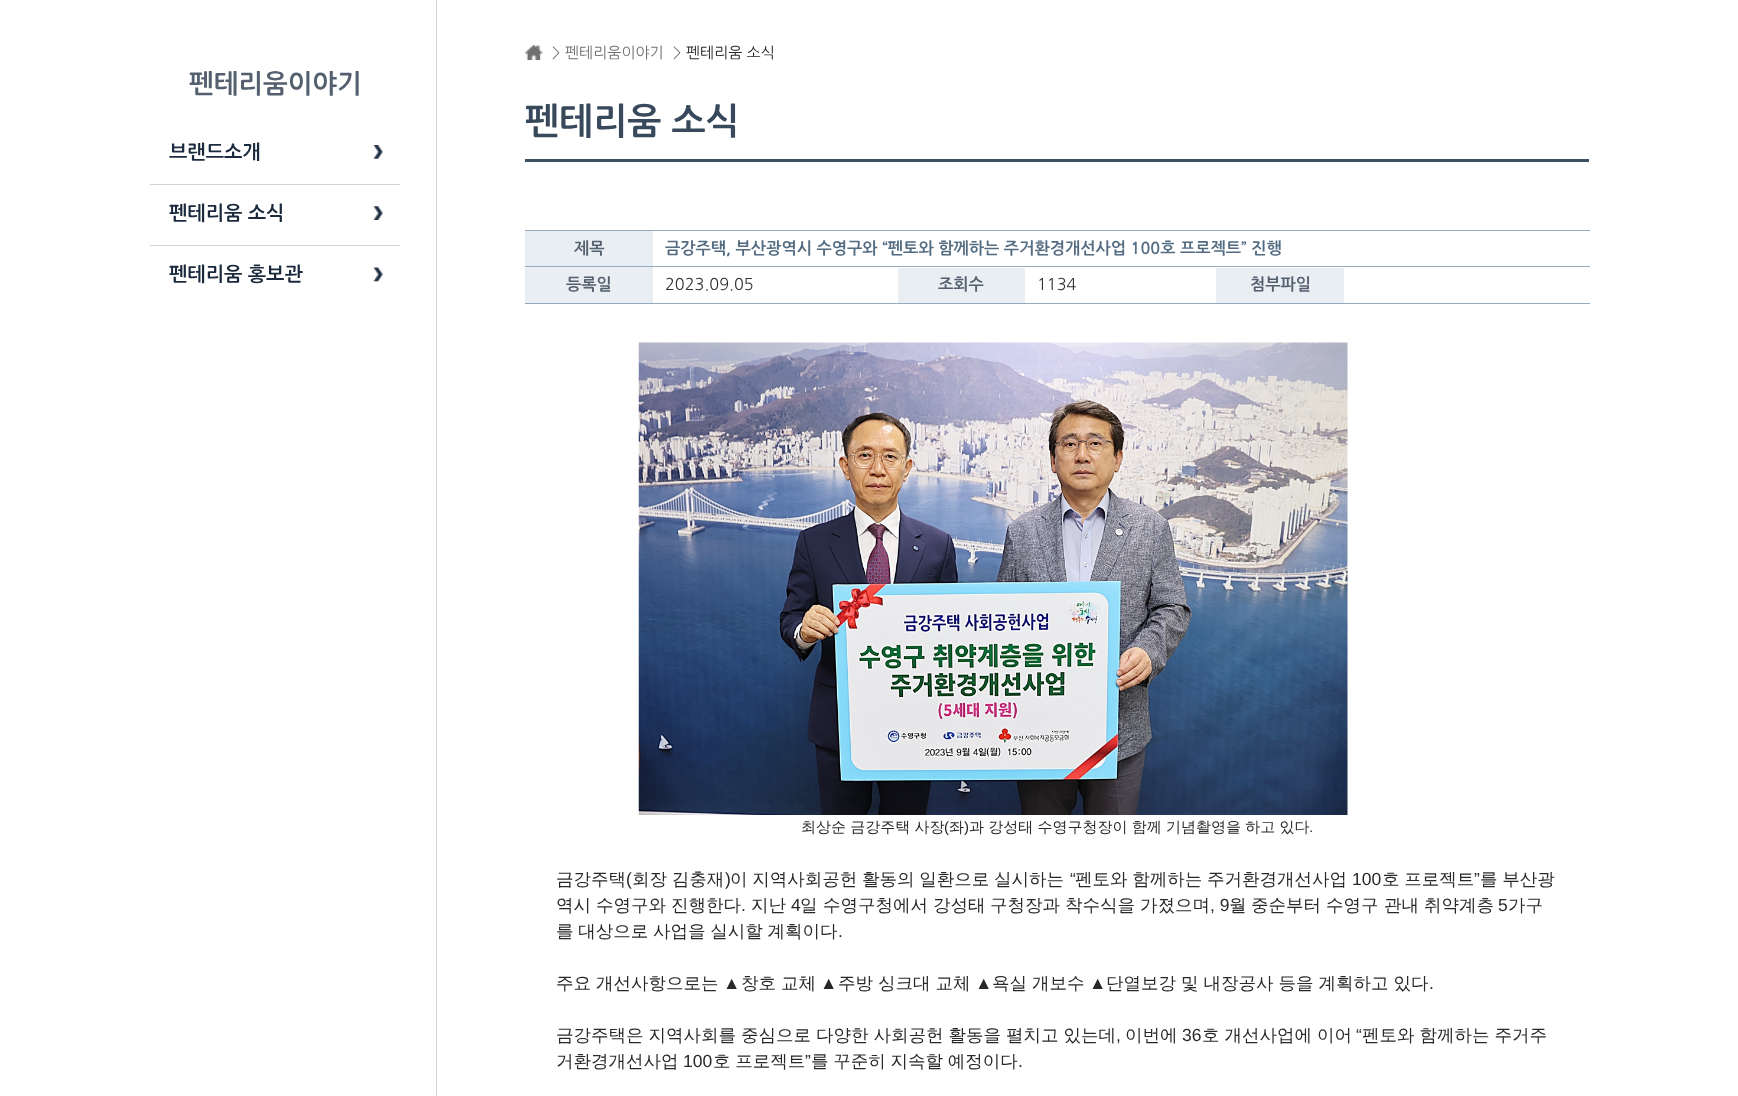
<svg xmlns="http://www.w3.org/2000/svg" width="1738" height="1096">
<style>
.a{font:bold 26.25px NanumGothic;fill:#54606f}
.b{font:bold 19.5px NanumGothic;fill:#1a2a3c}
.c{font:15px NanumGothic;fill:#717171}
.d{font:15px NanumGothic;fill:#282828}
.e{font:bold 36.25px NanumGothic;fill:#37495b}
.f{font:bold 16.25px NanumGothic;fill:#54606f}
.g{font:bold 16.25px NanumGothic;fill:#546c82}
.h{font:16.25px NanumGothic;fill:#323232}
.i{font:500 15px WenQuanYi Zen Hei;fill:#282828}
.j{font:15px Liberation Sans;fill:#282828}
.k{font:500 17.5px WenQuanYi Zen Hei;fill:#282828}
.l{font:17.5px Liberation Sans;fill:#282828}
</style>
<rect width="100%" height="100%" fill="#fff"/>
<image href="1.png" x="373" y="145" width="10" height="14"/>
<image href="2.png" x="373" y="206" width="10" height="14"/>
<path fill="#d2d2d2" d="M150 184h250v1H150z"/>
<image href="3.png" x="373" y="267" width="10" height="15"/>
<path fill="#d2d2d2" d="M150 245h250v1H150z"/>
<path fill="#d2d2d2" d="M436 0h1v1096H436z"/>
<image href="4.png" x="525" y="45" width="18" height="15"/>
<path fill="#3c5064" d="M525 159h1064v3H525z"/>
<path fill="#e9eef3" d="M525 231h128v72H525z"/>
<path fill="#93aabf" d="M525 230h1065v1H525z"/>
<path fill="#93aabf" d="M525 266h1065v1H525z"/>
<path fill="#e9eef3" d="M898 268h127v35H898z"/>
<path fill="#e9eef3" d="M1216 268h128v35H1216z"/>
<path fill="#93aabf" d="M525 303h1065v1H525z"/>
<image href="5.png" x="638" y="342" width="710" height="473"/>
<text class="a" x="189" y="93">펜테리움이야기</text>
<text class="b" x="169" y="159">브랜드소개</text>
<text class="b" x="169" y="220">펜테리움 소식</text>
<text class="b" x="169" y="281">펜테리움 홍보관</text>
<text class="c" x="552" y="58">&gt;</text>
<text class="c" x="565" y="58">펜테리움이야기</text>
<text class="c" x="673" y="58">&gt;</text>
<text class="d" x="686" y="58">펜테리움 소식</text>
<text class="e" x="525" y="134">펜테리움 소식</text>
<text class="f" x="574" y="254">제목</text>
<text class="g" x="665" y="254">금강주택, 부산광역시 수영구와 “펜토와 함께하는 주거환경개선사업 100호 프로젝트” 진행</text>
<text class="f" x="566" y="290">등록일</text>
<text class="h" x="665" y="290">2023.09.05</text>
<text class="f" x="938" y="290">조회수</text>
<text class="h" x="1037" y="290">1134</text>
<text class="f" x="1250" y="290">첨부파일</text>
<text class="i" x="801" y="832" word-spacing="-0.25">최상순 금강주택 사장</text>
<text class="j" x="944" y="832">(</text>
<text class="i" x="949" y="832">좌</text>
<text class="j" x="964" y="832">)</text>
<text class="i" x="969" y="832" word-spacing="-0.25">과 강성태 수영구청장이 함께 기념촬영을 하고 있다</text>
<text class="j" x="1309" y="832">.</text>
<text class="k" x="556" y="885">금강주택</text>
<text class="l" x="626" y="885">(</text>
<text class="k" x="632" y="885" word-spacing="-0.5">회장 김충재</text>
<text class="l" x="725" y="885">)</text>
<text class="k" x="730" y="885" word-spacing="-0.5">이 지역사회공헌 활동의 일환으로 실시하는</text>
<text class="l" x="1070" y="885">“</text>
<text class="k" x="1075" y="885" word-spacing="-0.5">펜토와 함께하는 주거환경개선사업</text>
<text class="l" x="1352" y="885">100</text>
<text class="k" x="1382" y="885" word-spacing="-0.5">호 프로젝트</text>
<text class="l" x="1474" y="885">”</text>
<text class="k" x="1480" y="885" word-spacing="-0.5">를 부산광</text>
<text class="k" x="556" y="911">역시</text>
<text class="k" x="596" y="911">수영구와</text>
<text class="k" x="671" y="911">진행한다</text>
<text class="l" x="741" y="911">.</text>
<text class="k" x="751" y="911">지난</text>
<text class="l" x="791" y="911">4</text>
<text class="k" x="800" y="911">일</text>
<text class="k" x="823" y="911">수영구청에서</text>
<text class="k" x="933" y="911">강성태</text>
<text class="k" x="990" y="911">구청장과</text>
<text class="k" x="1065" y="911">착수식을</text>
<text class="k" x="1140" y="911">가졌으며</text>
<text class="l" x="1210" y="911">, 9</text>
<text class="k" x="1229" y="911">월</text>
<text class="k" x="1251" y="911">중순부터</text>
<text class="k" x="1326" y="911">수영구</text>
<text class="k" x="1384" y="911">관내</text>
<text class="k" x="1424" y="911">취약계층</text>
<text class="l" x="1498" y="911">5</text>
<text class="k" x="1508" y="911">가구</text>
<text class="k" x="556" y="937" word-spacing="-0.5">를 대상으로 사업을 실시할 계획이다</text>
<text class="l" x="838" y="937">.</text>
<text class="k" x="556" y="989" word-spacing="-0.25">주요 개선사항으로는</text>
<text class="l" x="723" y="989">▲</text>
<text class="k" x="741" y="989" word-spacing="-0.25">창호 교체</text>
<text class="l" x="820" y="989">▲</text>
<text class="k" x="838" y="989" word-spacing="-0.25">주방 싱크대 교체</text>
<text class="l" x="975" y="989">▲</text>
<text class="k" x="992" y="989" word-spacing="-0.25">욕실 개보수</text>
<text class="l" x="1089" y="989">▲</text>
<text class="k" x="1106" y="989" word-spacing="-0.25">단열보강 및 내장공사 등을 계획하고 있다</text>
<text class="l" x="1429" y="989">.</text>
<text class="k" x="556" y="1041" word-spacing="-0.25">금강주택은 지역사회를 중심으로 다양한 사회공헌 활동을 펼치고 있는데</text>
<text class="k" x="1125" y="1041">이번에</text>
<text class="l" x="1182" y="1041">36</text>
<text class="k" x="1202" y="1041" word-spacing="-0.25">호 개선사업에 이어</text>
<text class="l" x="1356" y="1041">“</text>
<text class="k" x="1362" y="1041" word-spacing="-0.25">펜토와 함께하는 주거주</text>
<text class="l" x="1116" y="1041">,</text>
<text class="k" x="556" y="1067">거환경개선사업</text>
<text class="l" x="683" y="1067">100</text>
<text class="k" x="713" y="1067" word-spacing="-0.5">호 프로젝트</text>
<text class="l" x="805" y="1067">”</text>
<text class="k" x="811" y="1067" word-spacing="-0.5">를 꾸준히 지속할 예정이다</text>
<text class="l" x="1018" y="1067">.</text>
</svg>
